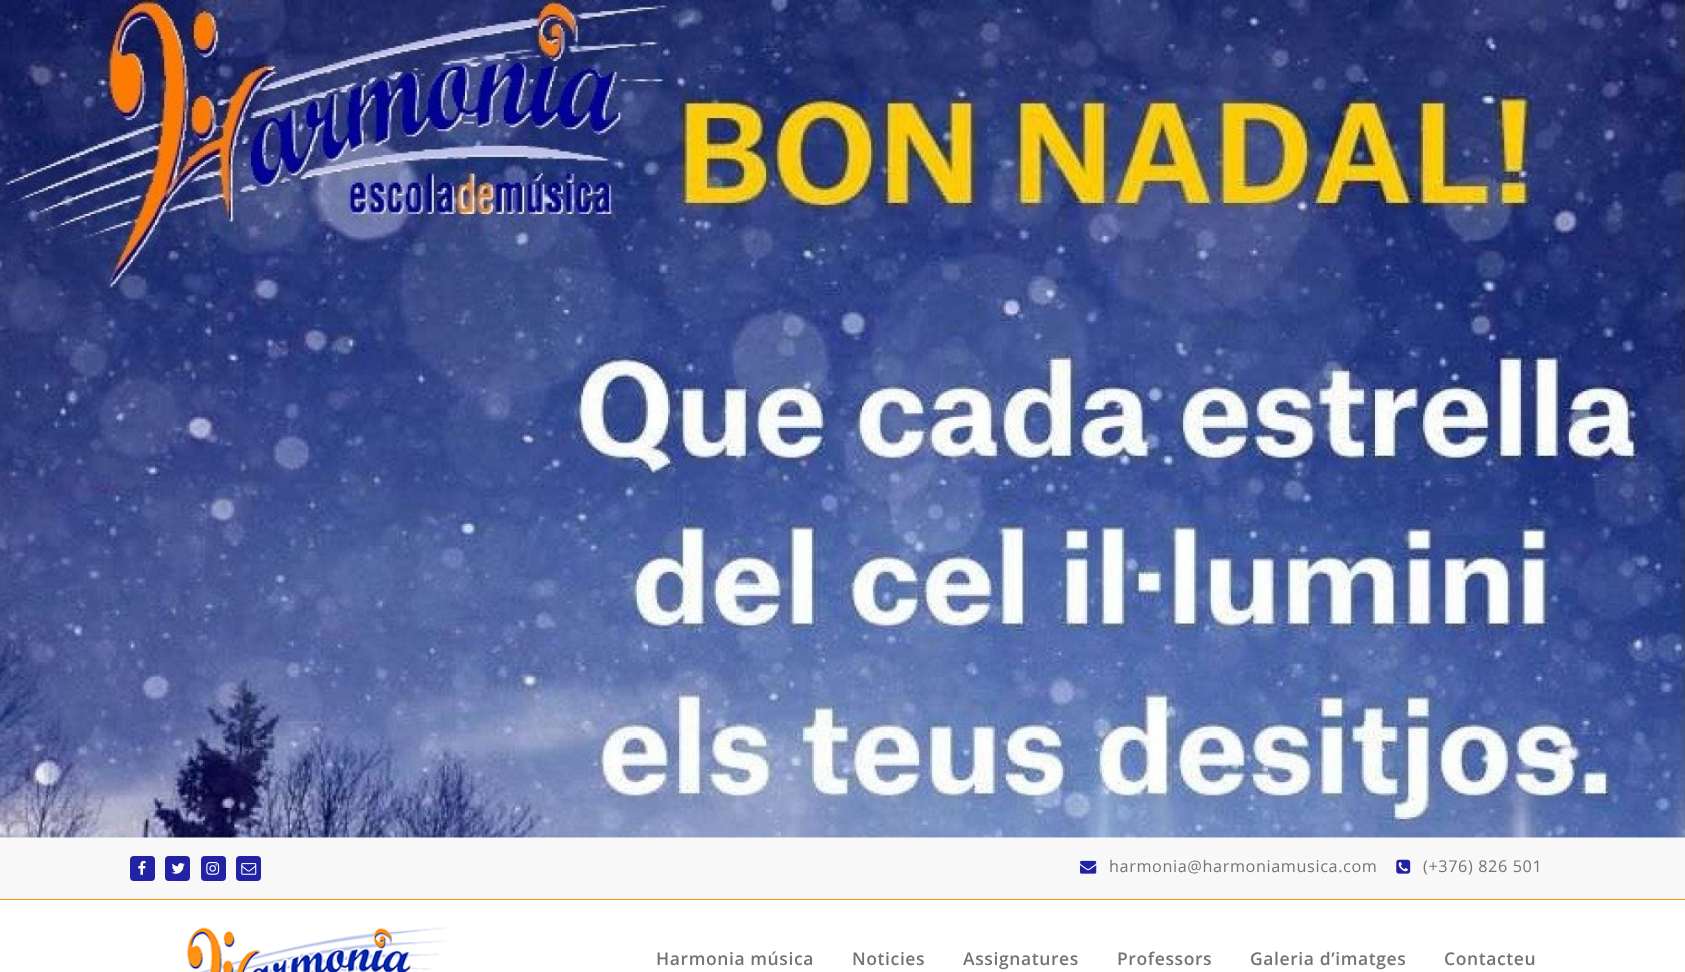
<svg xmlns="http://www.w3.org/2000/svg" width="1685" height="972">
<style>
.a{font:16.25px Open Sans;letter-spacing:0.6px;fill:#747474}
.b{font:600 17.5px Open Sans;letter-spacing:0.6px;fill:#747474}
</style>
<rect width="100%" height="100%" fill="#fff"/>
<image href="1.png" x="0" y="0" width="1685" height="838"/>
<path fill="#f8f8f8" d="M0 838h1685v61H0z"/>
<path fill="#fa9215" d="M0 899h1685v1H0z"/>
<rect fill="#2122a4" x="130" y="856" width="25" height="25" rx="4"/>
<image href="2.png" x="138" y="860" width="8" height="15"/>
<rect fill="#2122a4" x="165" y="856" width="25" height="25" rx="4"/>
<image href="3.png" x="171" y="863" width="14" height="11"/>
<rect fill="#2122a4" x="201" y="856" width="25" height="25" rx="4"/>
<image href="4.png" x="206" y="862" width="14" height="13"/>
<rect fill="#2122a4" x="236" y="856" width="25" height="25" rx="4"/>
<image href="5.png" x="241" y="863" width="16" height="12"/>
<image href="6.png" x="1080" y="860" width="17" height="14"/>
<image href="7.png" x="1396" y="859" width="15" height="15"/>
<image href="8.png" x="187" y="927" width="261" height="45"/>
<text class="a" x="1109" y="872">harmonia@harmoniamusica.com</text>
<text class="a" x="1423" y="872">(+376) 826 501</text>
<text class="b" x="656" y="965">Harmonia música</text>
<text class="b" x="852" y="965">Noticies</text>
<text class="b" x="963" y="965">Assignatures</text>
<text class="b" x="1117" y="965">Professors</text>
<text class="b" x="1250" y="965">Galeria d’imatges</text>
<text class="b" x="1444" y="965">Contacteu</text>
</svg>
